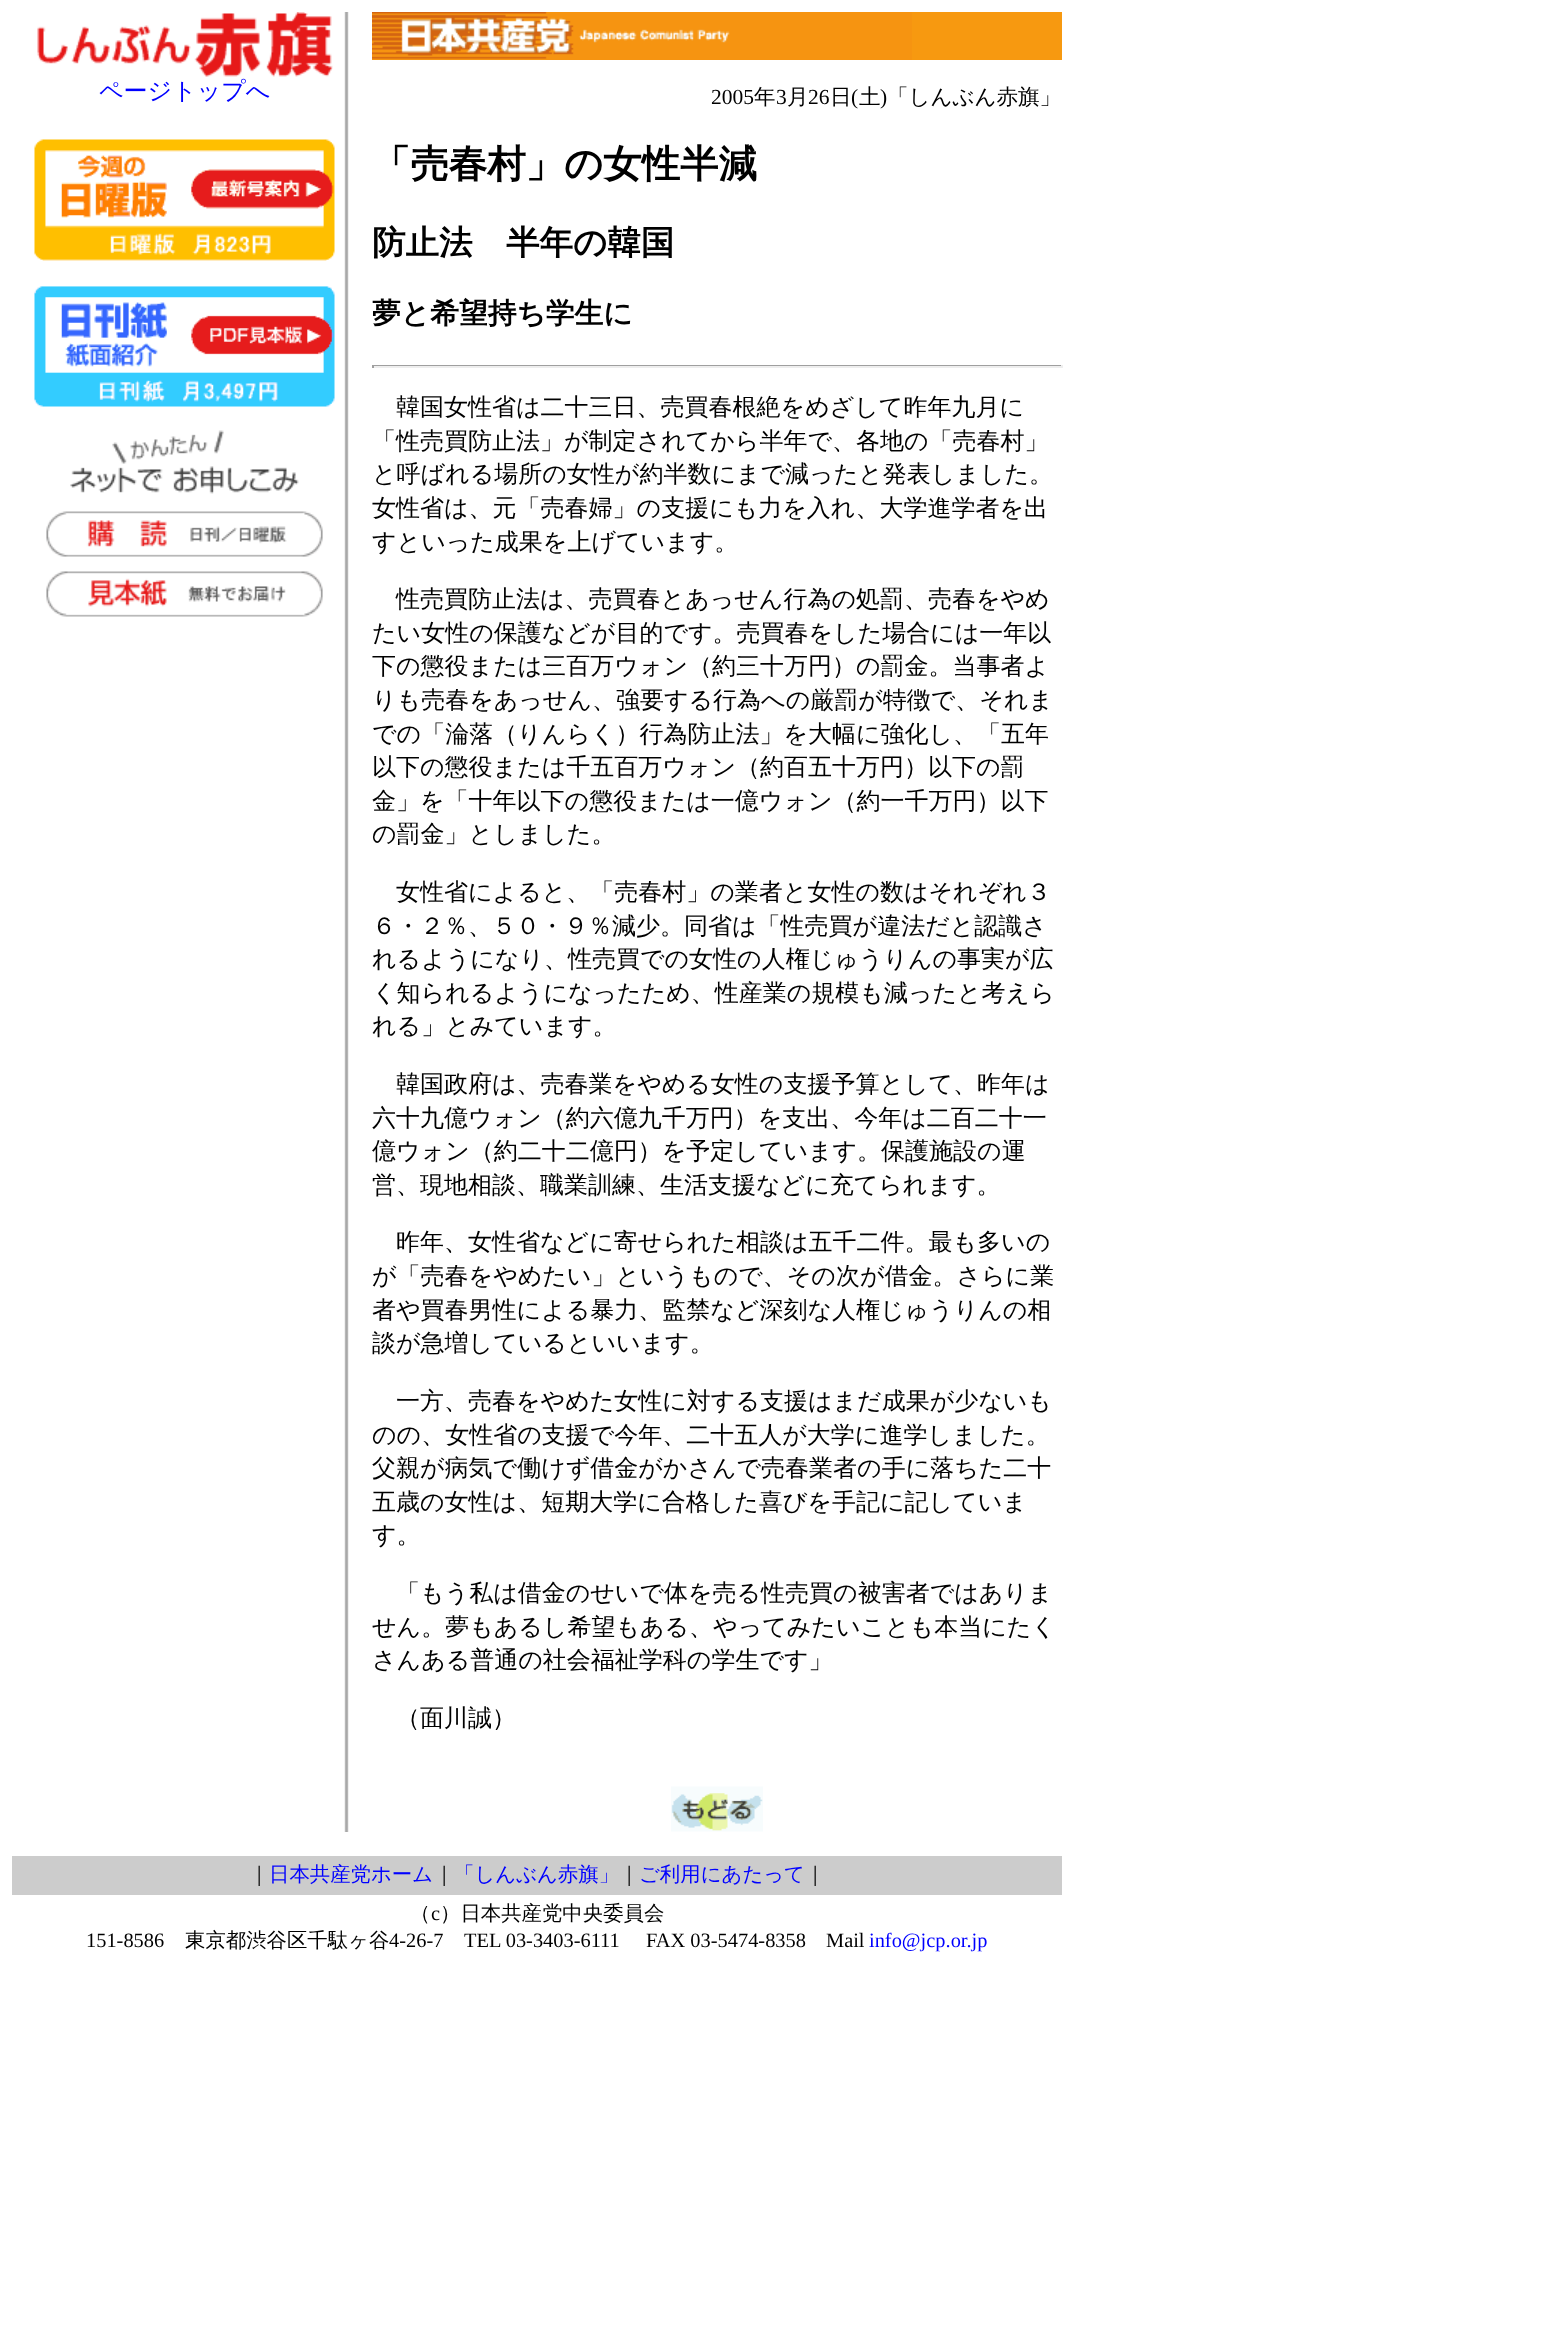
<svg xmlns="http://www.w3.org/2000/svg" width="1546" height="2339">
<style>
.a{font:500 24px WenQuanYi Zen Hei;fill:#00f}
.b{font:21.5px Liberation Serif;fill:#000}
.c{font:500 21.5px WenQuanYi Zen Hei;fill:#000}
.d{font:bold 38.4px WenQuanYi Zen Hei;fill:#000}
.e{font:bold 33.5px WenQuanYi Zen Hei;fill:#000}
.f{font:bold 28.75px WenQuanYi Zen Hei;fill:#000}
.g{font:500 24px WenQuanYi Zen Hei;fill:#000}
.h{font:500 20.4px WenQuanYi Zen Hei;fill:#000}
.i{font:500 20.4px WenQuanYi Zen Hei;fill:#00f}
.j{font:20.4px Liberation Serif;fill:#000}
.k{font:20.4px Liberation Serif;fill:#00f}
</style>
<rect width="100%" height="100%" fill="#fff"/>
<image href="1.png" x="344" y="12" width="5" height="1820"/>
<image href="2.png" x="37" y="12" width="296" height="65"/>
<image href="3.png" x="34" y="139" width="301" height="122"/>
<image href="4.png" x="34" y="286" width="301" height="121"/>
<image href="5.png" x="70" y="430" width="229" height="64"/>
<image href="6.png" x="46" y="511" width="277" height="46"/>
<image href="7.png" x="46" y="571" width="277" height="46"/>
<path fill="#f79910" d="M912 12h150v48H912z"/>
<image href="8.png" x="372" y="12" width="540" height="48"/>
<path fill="#9f9f9f" d="M372 365h690v1H372z"/>
<path fill="#eee" d="M1061 365h2v3H1061z"/>
<path fill="#eee" d="M372 366h690v2H372z"/>
<path fill="#9f9f9f" d="M372 365h2v3H372z"/>
<image href="9.png" x="671" y="1786" width="92" height="46"/>
<path fill="#ccc" d="M12 1856h1050v39H12z"/>
<text class="a" x="99" y="99">ページトップへ</text>
<text class="b" x="711" y="104">2005</text>
<text class="c" x="754" y="104">年</text>
<text class="b" x="776" y="104">3</text>
<text class="c" x="787" y="104">月</text>
<text class="b" x="808" y="104">26</text>
<text class="c" x="830" y="104">日</text>
<text class="b" x="851" y="104">(</text>
<text class="c" x="859" y="104">土</text>
<text class="b" x="880" y="104">)</text>
<text class="c" x="887" y="104">「しんぶん赤旗」</text>
<text class="d" x="372" y="177">「売春村」の女性半減</text>
<text class="e" x="372" y="254">防止法　半年の韓国</text>
<text class="f" x="372" y="323">夢と希望持ち学生に</text>
<text class="g" x="396" y="415">韓国女性省は二十三日、売買春根絶をめざして昨年九月に</text>
<text class="g" x="372" y="449">「性売買防止法」が制定されてから半年で、各地の「売春村」</text>
<text class="g" x="372" y="482">と呼ばれる場所の女性が約半数にまで減ったと発表しました。</text>
<text class="g" x="372" y="516">女性省は、元「売春婦」の支援にも力を入れ、大学進学者を出</text>
<text class="g" x="372" y="550">すといった成果を上げています。</text>
<text class="g" x="396" y="607">性売買防止法は、売買春とあっせん行為の処罰、売春をやめ</text>
<text class="g" x="372" y="641">たい女性の保護などが目的です。売買春をした場合には一年以</text>
<text class="g" x="372" y="674">下の懲役または三百万ウォン（約三十万円）の罰金。当事者よ</text>
<text class="g" x="372" y="708">りも売春をあっせん、強要する行為への厳罰が特徴で、それま</text>
<text class="g" x="372" y="742">での「淪落（りんらく）行為防止法」を大幅に強化し、「五年</text>
<text class="g" x="372" y="775">以下の懲役または千五百万ウォン（約百五十万円）以下の罰</text>
<text class="g" x="372" y="809">金」を「十年以下の懲役または一億ウォン（約一千万円）以下</text>
<text class="g" x="372" y="842">の罰金」としました。</text>
<text class="g" x="396" y="900">女性省によると、「売春村」の業者と女性の数はそれぞれ３</text>
<text class="g" x="372" y="934">６・２％、５０・９％減少。同省は「性売買が違法だと認識さ</text>
<text class="g" x="372" y="967">れるようになり、性売買での女性の人権じゅうりんの事実が広</text>
<text class="g" x="372" y="1001">く知られるようになったため、性産業の規模も減ったと考えら</text>
<text class="g" x="372" y="1034">れる」とみています。</text>
<text class="g" x="396" y="1092">韓国政府は、売春業をやめる女性の支援予算として、昨年は</text>
<text class="g" x="372" y="1126">六十九億ウォン（約六億九千万円）を支出、今年は二百二十一</text>
<text class="g" x="372" y="1159">億ウォン（約二十二億円）を予定しています。保護施設の運</text>
<text class="g" x="372" y="1193">営、現地相談、職業訓練、生活支援などに充てられます。</text>
<text class="g" x="396" y="1250">昨年、女性省などに寄せられた相談は五千二件。最も多いの</text>
<text class="g" x="372" y="1284">が「売春をやめたい」というもので、その次が借金。さらに業</text>
<text class="g" x="372" y="1318">者や買春男性による暴力、監禁など深刻な人権じゅうりんの相</text>
<text class="g" x="372" y="1351">談が急増しているといいます。</text>
<text class="g" x="396" y="1409">一方、売春をやめた女性に対する支援はまだ成果が少ないも</text>
<text class="g" x="372" y="1443">のの、女性省の支援で今年、二十五人が大学に進学しました。</text>
<text class="g" x="372" y="1476">父親が病気で働けず借金がかさんで売春業者の手に落ちた二十</text>
<text class="g" x="372" y="1510">五歳の女性は、短期大学に合格した喜びを手記に記していま</text>
<text class="g" x="372" y="1543">す。</text>
<text class="g" x="396" y="1601">「もう私は借金のせいで体を売る性売買の被害者ではありま</text>
<text class="g" x="372" y="1635">せん。夢もあるし希望もある、やってみたいことも本当にたく</text>
<text class="g" x="372" y="1668">さんある普通の社会福祉学科の学生です」</text>
<text class="g" x="396" y="1726">（面川誠）</text>
<text class="h" x="249" y="1881">｜</text>
<text class="i" x="269" y="1881">日本共産党ホーム</text>
<text class="h" x="434" y="1881">｜</text>
<text class="i" x="454" y="1881">「しんぶん赤旗」</text>
<text class="h" x="619" y="1881">｜</text>
<text class="i" x="639" y="1881">ご利用にあたって</text>
<text class="h" x="805" y="1881">｜</text>
<text class="h" x="410" y="1920">（</text>
<text class="j" x="431" y="1920">c</text>
<text class="h" x="440" y="1920">）日本共産党中央委員会</text>
<text class="j" x="86" y="1947">151-8586</text>
<text class="h" x="185" y="1947">東京都渋谷区千駄ヶ谷</text>
<text class="j" x="389" y="1947">4-26-7</text>
<text class="j" x="464" y="1947">TEL 03-3403-6111</text>
<text class="j" x="646" y="1947">FAX 03-5474-8358</text>
<text class="j" x="826" y="1947">Mail</text>
<text class="k" x="869" y="1947">info@jcp.or.jp</text>
</svg>
